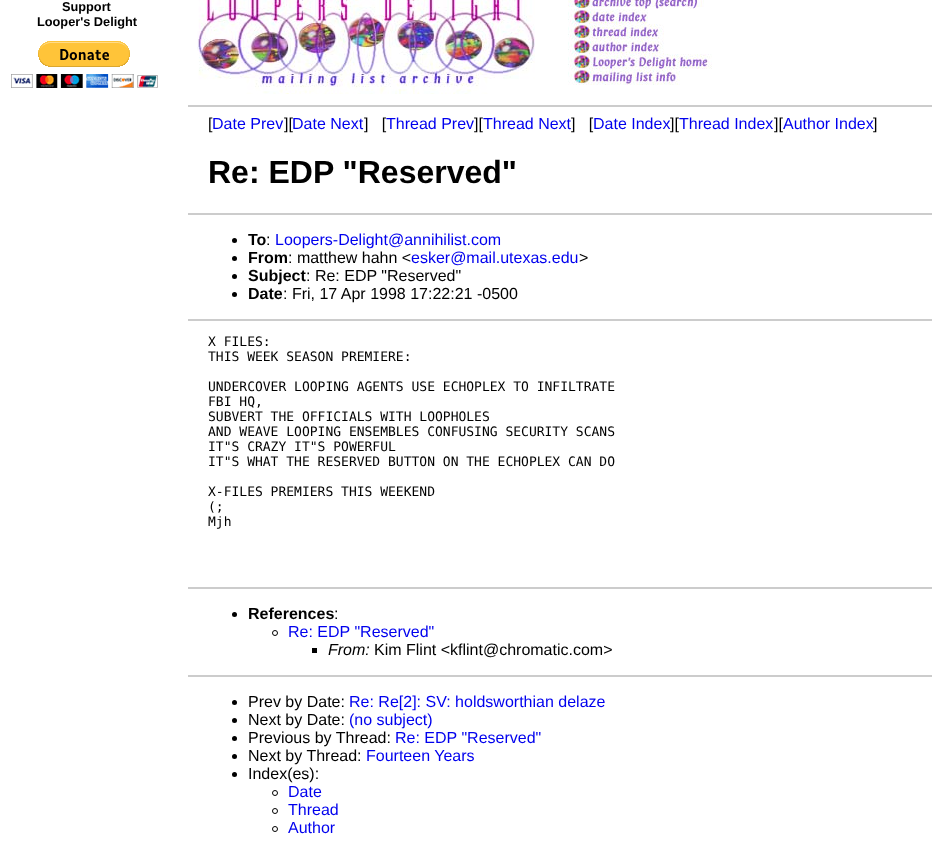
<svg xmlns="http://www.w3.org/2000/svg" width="940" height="848">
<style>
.a{font:bold 12.75px Liberation Sans;fill:#000}
.b{font:16px Liberation Sans;fill:#000}
.c{font:16px Liberation Sans;fill:#00e}
.d{font:bold 32px Liberation Sans;fill:#000}
.e{font:bold 16px Liberation Sans;fill:#000}
.f{font:13px DejaVu Sans Mono;fill:#000}
.g{font:italic 16px Liberation Sans;fill:#000}
</style>
<rect width="100%" height="100%" fill="#fff"/>
<image href="1.png" x="11" y="41" width="147" height="47"/>
<image href="2.png" x="197" y="0" width="338" height="94"/>
<image href="3.png" x="568" y="0" width="136" height="9"/>
<image href="4.png" x="568" y="9" width="80" height="15"/>
<image href="5.png" x="568" y="24" width="96" height="15"/>
<image href="6.png" x="568" y="39" width="96" height="15"/>
<image href="7.png" x="568" y="54" width="144" height="15"/>
<image href="8.png" x="568" y="69" width="112" height="16"/>
<path fill="#ccc" d="M188 105h744v2H188z"/>
<path fill="#ccc" d="M188 213h744v2H188z"/>
<circle fill="#000" cx="234.5" cy="240.5" r="2.5"/>
<circle fill="#000" cx="234.5" cy="258.5" r="2.5"/>
<circle fill="#000" cx="234.5" cy="276.5" r="2.5"/>
<circle fill="#000" cx="234.5" cy="294.5" r="2.5"/>
<path fill="#ccc" d="M188 319h744v2H188z"/>
<path fill="#ccc" d="M188 587h744v2H188z"/>
<circle fill="#000" cx="234.5" cy="614.5" r="2.5"/>
<circle fill="none" stroke="#000" cx="275" cy="633" r="2.5"/>
<path fill="#000" d="M312 648h5v5H312z"/>
<path fill="#ccc" d="M188 675h744v2H188z"/>
<circle fill="#000" cx="234.5" cy="702.5" r="2.5"/>
<circle fill="#000" cx="234.5" cy="720.5" r="2.5"/>
<circle fill="#000" cx="234.5" cy="738.5" r="2.5"/>
<circle fill="#000" cx="234.5" cy="756.5" r="2.5"/>
<circle fill="#000" cx="234.5" cy="774.5" r="2.5"/>
<circle fill="none" stroke="#000" cx="275" cy="793" r="2.5"/>
<circle fill="none" stroke="#000" cx="275" cy="811" r="2.5"/>
<circle fill="none" stroke="#000" cx="275" cy="829" r="2.5"/>
<text class="a" x="62" y="11">Support</text>
<text class="a" x="37" y="26">Looper's Delight</text>
<text class="b" x="208" y="129">[</text>
<text class="c" x="212" y="129">Date Prev</text>
<text class="b" x="284" y="129">][</text>
<text class="c" x="292" y="129">Date Next</text>
<text class="b" xml:space="preserve" x="364" y="129">]   [</text>
<text class="c" x="386" y="129">Thread Prev</text>
<text class="b" x="474" y="129">][</text>
<text class="c" x="483" y="129">Thread Next</text>
<text class="b" xml:space="preserve" x="571" y="129">]   [</text>
<text class="c" x="593" y="129">Date Index</text>
<text class="b" x="670" y="129">][</text>
<text class="c" x="679" y="129">Thread Index</text>
<text class="b" x="774" y="129">][</text>
<text class="c" x="783" y="129">Author Index</text>
<text class="b" x="873" y="129">]</text>
<text class="d" x="208" y="183">Re: EDP "Reserved"</text>
<text class="e" x="248" y="245">To</text>
<text class="b" x="266" y="245">:</text>
<text class="c" x="275" y="245">Loopers-Delight@annihilist.com</text>
<text class="e" x="248" y="263">From</text>
<text class="b" x="288" y="263">: matthew hahn &lt;</text>
<text class="c" x="411" y="263">esker@mail.utexas.edu</text>
<text class="b" x="579" y="263">&gt;</text>
<text class="e" x="248" y="281">Subject</text>
<text class="b" x="306" y="281">: Re: EDP "Reserved"</text>
<text class="e" x="248" y="299">Date</text>
<text class="b" x="283" y="299">: Fri, 17 Apr 1998 17:22:21 -0500</text>
<text class="f" x="208" y="346">X FILES:</text>
<text class="f" x="208" y="361">THIS WEEK SEASON PREMIERE:</text>
<text class="f" x="208" y="391">UNDERCOVER LOOPING AGENTS USE ECHOPLEX TO INFILTRATE</text>
<text class="f" x="208" y="406">FBI HQ,</text>
<text class="f" x="208" y="421">SUBVERT THE OFFICIALS WITH LOOPHOLES</text>
<text class="f" x="208" y="436">AND WEAVE LOOPING ENSEMBLES CONFUSING SECURITY SCANS</text>
<text class="f" x="208" y="451">IT"S CRAZY IT"S POWERFUL</text>
<text class="f" x="208" y="466">IT"S WHAT THE RESERVED BUTTON ON THE ECHOPLEX CAN DO</text>
<text class="f" x="208" y="496">X-FILES PREMIERS THIS WEEKEND</text>
<text class="f" x="208" y="511">(;</text>
<text class="f" x="208" y="526">Mjh</text>
<text class="e" x="248" y="619">References</text>
<text class="b" x="334" y="619">:</text>
<text class="c" x="288" y="637">Re: EDP "Reserved"</text>
<text class="g" x="328" y="655">From:</text>
<text class="b" x="374" y="655">Kim Flint &lt;kflint@chromatic.com&gt;</text>
<text class="b" x="248" y="707">Prev by Date:</text>
<text class="c" x="349" y="707">Re: Re[2]: SV: holdsworthian delaze</text>
<text class="b" x="248" y="725">Next by Date:</text>
<text class="c" x="349" y="725">(no subject)</text>
<text class="b" x="248" y="743">Previous by Thread:</text>
<text class="c" x="395" y="743">Re: EDP "Reserved"</text>
<text class="b" x="248" y="761">Next by Thread:</text>
<text class="c" x="366" y="761">Fourteen Years</text>
<text class="b" x="248" y="779">Index(es):</text>
<text class="c" x="288" y="797">Date</text>
<text class="c" x="288" y="815">Thread</text>
<text class="c" x="288" y="833">Author</text>
</svg>
